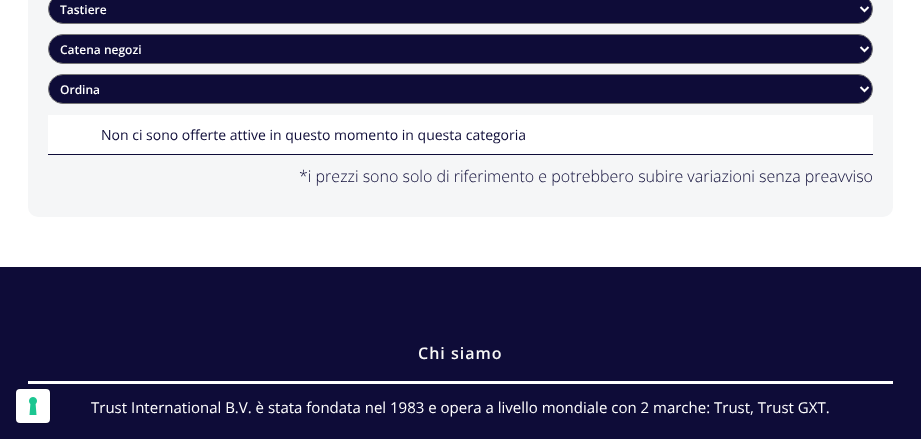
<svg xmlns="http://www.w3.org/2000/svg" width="921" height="439">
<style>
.a{font:600 12px Open Sans;fill:#fff}
.b{font:14px Open Sans;fill:#0e0c38}
.c{font:300 16px Open Sans;fill:#0e0c38}
.d{font:600 16px Open Sans;letter-spacing:1px;fill:#f8f8f7}
.e{font:15px Open Sans;fill:#fff}
</style>
<rect width="100%" height="100%" fill="#fff"/>
<path fill="#0e0c38" d="M0 267h921v172H0z"/>
<rect fill="none" stroke="#0c0a30" x="15.5" y="388.5" width="35" height="35" rx="4.5"/>
<rect fill="#fff" x="16" y="389" width="34" height="34" rx="4"/>
<image href="1.png" x="29" y="397" width="8" height="18"/>
<rect fill="#f5f6f7" x="28" y="-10" width="865" height="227" rx="10"/>
<rect fill="#0e0c38" stroke="#767676" x="48.5" y="-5.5" width="824" height="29" rx="14.5"/>
<path fill="none" stroke="#fff" stroke-width="2" d="M860.5 7l4 4l4-4"/>
<rect fill="#0e0c38" stroke="#767676" x="48.5" y="34.5" width="824" height="29" rx="14.5"/>
<path fill="none" stroke="#fff" stroke-width="2" d="M860.5 47l4 4l4-4"/>
<rect fill="#0e0c38" stroke="#767676" x="48.5" y="74.5" width="824" height="29" rx="14.5"/>
<path fill="none" stroke="#fff" stroke-width="2" d="M860.5 87l4 4l4-4"/>
<path fill="#fff" d="M48 115h825v39H48z"/>
<path fill="#0e0c38" d="M48 154h825v1H48z"/>
<path fill="#fff" d="M28 381h865v3H28z"/>
<text class="a" x="60" y="14">Tastiere</text>
<text class="a" x="60" y="54">Catena negozi</text>
<text class="a" x="60" y="94">Ordina</text>
<text class="b" x="101" y="140">Non ci sono offerte attive in questo momento in questa categoria</text>
<text class="c" x="299" y="182">*i prezzi sono solo di riferimento e potrebbero subire variazioni senza preavviso</text>
<text class="d" x="418" y="359">Chi siamo</text>
<text class="e" x="91" y="413">Trust International B.V. è stata fondata nel 1983 e opera a livello mondiale con 2 marche: Trust, Trust GXT.</text>
</svg>
